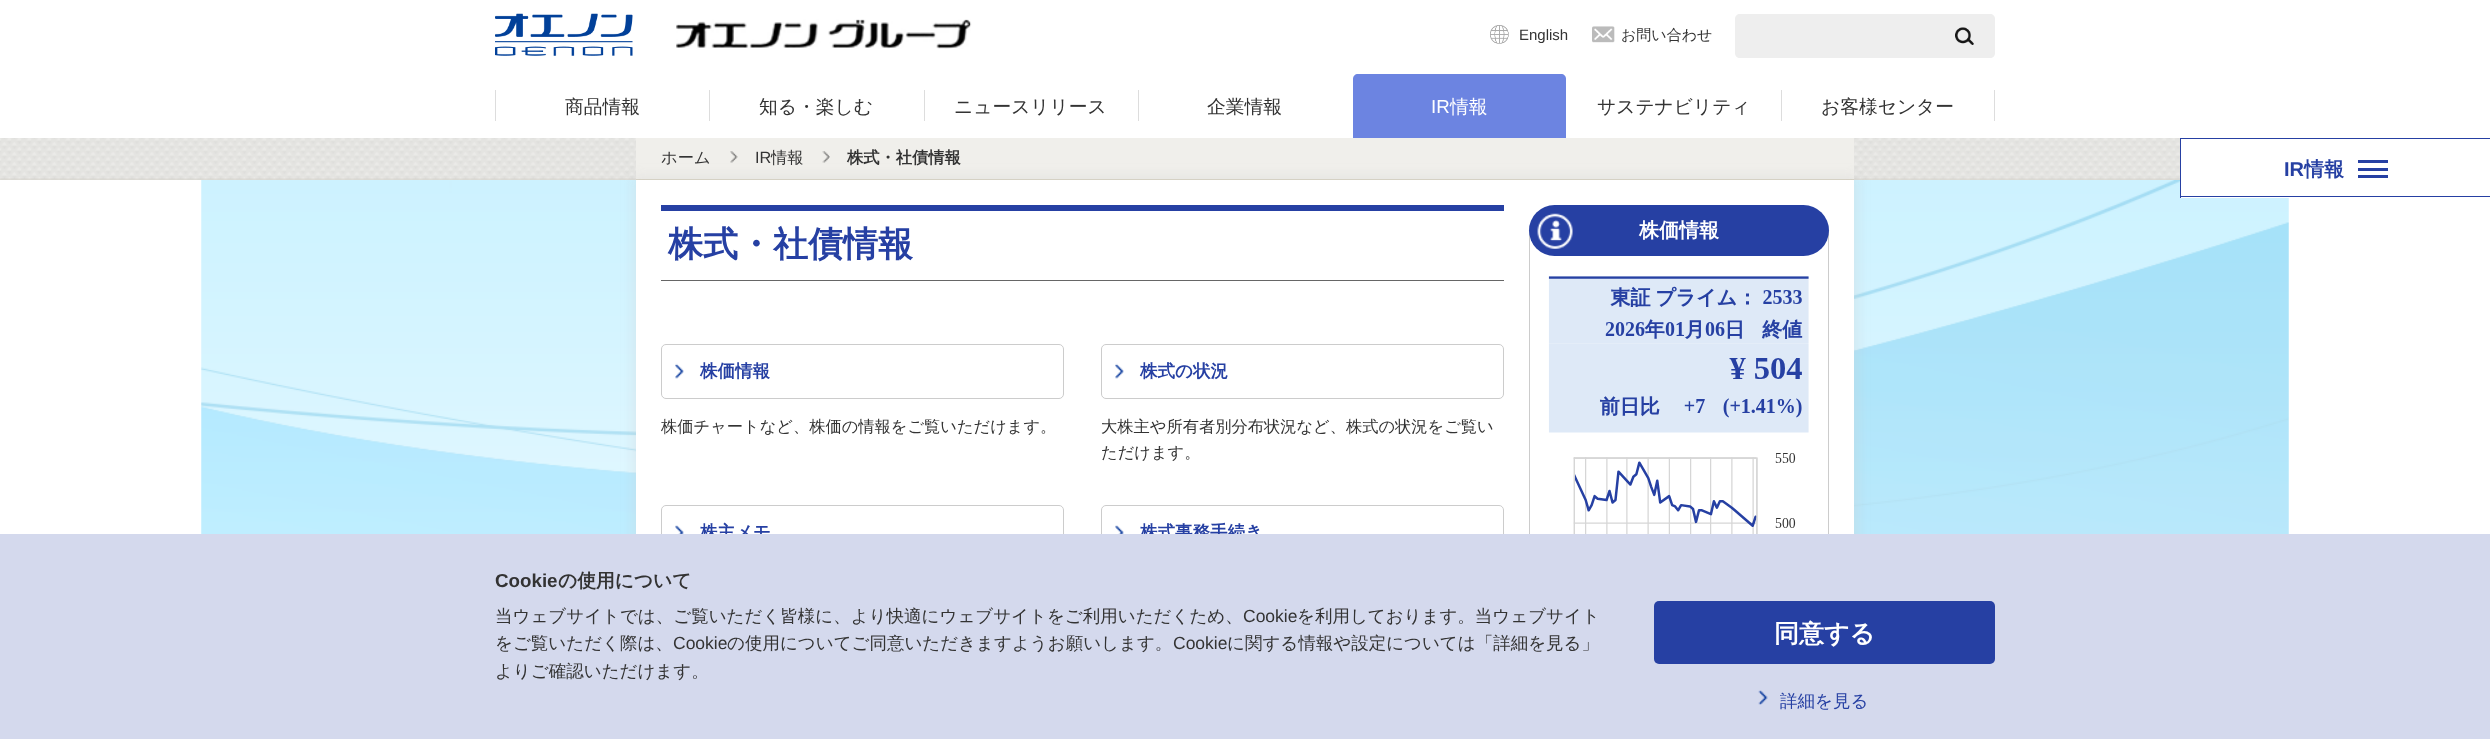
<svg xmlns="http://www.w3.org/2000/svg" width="2490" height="739">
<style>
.a{font:15px Liberation Sans;fill:#333}
.b{font:500 15px WenQuanYi Zen Hei;fill:#333}
.c{font:500 18.75px WenQuanYi Zen Hei;fill:#333}
.d{font:18.75px Liberation Sans;fill:#fff}
.e{font:500 18.75px WenQuanYi Zen Hei;fill:#fff}
.f{font:500 16.25px WenQuanYi Zen Hei;fill:#333}
.g{font:16.25px Liberation Sans;fill:#333}
.h{font:bold 16.25px WenQuanYi Zen Hei;fill:#333}
.i{font:bold 20px Liberation Sans;fill:#2640a3}
.j{font:bold 20px WenQuanYi Zen Hei;fill:#2640a3}
.k{font:bold 35px WenQuanYi Zen Hei;fill:#2640a3}
.l{font:bold 17.5px WenQuanYi Zen Hei;fill:#2640a3}
.m{font:bold 20px WenQuanYi Zen Hei;fill:#fff}
.n{font:bold 18.75px Liberation Sans;fill:#333}
.o{font:bold 18.75px WenQuanYi Zen Hei;fill:#333}
.p{font:500 17.5px WenQuanYi Zen Hei;fill:#333}
.q{font:17.5px Liberation Sans;fill:#333}
.r{font:bold 25px WenQuanYi Zen Hei;fill:#fff}
.s{font:500 17.5px WenQuanYi Zen Hei;fill:#2640a3}
</style>
<rect width="100%" height="100%" fill="#fff"/>
<image href="1.png" x="495" y="13" width="138" height="43"/>
<image href="2.png" x="676" y="19" width="296" height="30"/>
<image href="3.png" x="1490" y="25" width="19" height="19"/>
<image href="4.png" x="1592" y="26" width="23" height="17"/>
<path fill="#eee" d="M1740 14h194v44h-194c-3 0-5-2-5-5v-34c0-3 2-5 5-5z"/>
<path fill="#eee" d="M1934 14h56c3 0 5 2 5 5v34c0 3-2 5-5 5h-56z"/>
<image href="5.png" x="1955" y="27" width="19" height="18"/>
<path fill="#ddd" d="M495 90h1v31H495z"/>
<path fill="#ddd" d="M709 90h1v31H709z"/>
<path fill="#ddd" d="M924 90h1v31H924z"/>
<path fill="#ddd" d="M1138 90h1v31H1138z"/>
<path fill="#6c84e1" d="M1358 74h203c3 0 5 2 5 5v59h-213v-59c0-3 2-5 5-5z"/>
<path fill="#ddd" d="M1781 90h1v31H1781z"/>
<path fill="#ddd" d="M1994 90h1v31H1994z"/>
<image href="6.png" x="0" y="138" width="2180" height="42"/>
<path fill="#f0efeb" d="M636 138h1218v41H636z"/>
<path fill="#d8d2c2" d="M636 179h1218v1H636z"/>
<image href="9.png" x="201" y="180" width="2088" height="354"/>
<path fill="#cccccc4d" filter="blur(6px)" d="M633 176h1225v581H633z"/>
<image href="7.png" x="730" y="151" width="8" height="12"/>
<image href="8.png" x="822" y="151" width="8" height="12"/>
<path fill="#fff" d="M2181 180h108v18H2181z"/>
<path fill="#2640a3" d="M2180 138h310v1H2180z"/>
<path fill="#2640a3" d="M2180 196h310v1H2180z"/>
<path fill="#2640a3" d="M2180 138h1v60H2180z"/>
<path fill="#2640a3" d="M2358 160h30v3H2358z"/>
<path fill="#2640a3" d="M2358 175h30v3H2358z"/>
<path fill="#2640a3" d="M2358 168h30v3H2358z"/>
<path fill="#fff" d="M636 180h1218v354H636z"/>
<path fill="#2640a3" d="M661 205h843v6H661z"/>
<path fill="#666" d="M661 280h843v1H661z"/>
<image href="10.png" x="675" y="363" width="9" height="16"/>
<rect fill="none" stroke="#ccc" x="661.5" y="344.5" width="402" height="54" rx="4.5"/>
<image href="10.png" x="1115" y="363" width="9" height="16"/>
<rect fill="none" stroke="#ccc" x="1101.5" y="344.5" width="402" height="54" rx="4.5"/>
<image href="11.png" x="675" y="525" width="9" height="9"/>
<rect fill="none" stroke="#ccc" x="661.5" y="505.5" width="402" height="54" rx="4.5"/>
<image href="11.png" x="1115" y="525" width="9" height="9"/>
<rect fill="none" stroke="#ccc" x="1101.5" y="505.5" width="402" height="54" rx="4.5"/>
<path fill="none" stroke="#ccc" d="M1529.5 231.5h299v474H1529.5z"/>
<rect fill="#2640a3" x="1529" y="205" width="300" height="51" rx="25.5"/>
<image href="12.png" x="1537" y="213" width="36" height="36"/>
<image href="13.png" x="1548" y="276" width="261" height="258"/>
<text class="a" x="1519" y="40">English</text>
<text class="b" x="1621" y="40">お問い合わせ</text>
<text class="c" x="565" y="113">商品情報</text>
<text class="c" x="759" y="113">知る・楽しむ</text>
<text class="c" x="954" y="113">ニュースリリース</text>
<text class="c" x="1207" y="113">企業情報</text>
<text class="d" x="1431" y="113">IR</text>
<text class="e" x="1450" y="113">情報</text>
<text class="c" x="1597" y="113">サステナビリティ</text>
<text class="c" x="1821" y="113">お客様センター</text>
<text class="f" x="661" y="163">ホーム</text>
<text class="g" x="755" y="163">IR</text>
<text class="f" x="771" y="163">情報</text>
<text class="h" x="847" y="163">株式・社債情報</text>
<text class="i" x="2284" y="176">IR</text>
<text class="j" x="2304" y="176">情報</text>
<text class="k" x="668" y="256">株式・社債情報</text>
<text class="l" x="700" y="377">株価情報</text>
<text class="f" x="661" y="432">株価チャートなど、株価の情報をご覧いただけます。</text>
<text class="l" x="1140" y="377">株式の状況</text>
<text class="f" x="1101" y="432">大株主や所有者別分布状況など、株式の状況をご覧い</text>
<text class="f" x="1101" y="458">ただけます。</text>
<text class="l" x="700" y="538">株主メモ</text>
<text class="l" x="1140" y="538">株式事務手続き</text>
<text class="m" x="1639" y="237">株価情報</text>
<path fill="#d4d9ed" d="M0 534h2490v205H0z"/>
<text class="n" x="495" y="587">Cookie</text>
<text class="o" x="558" y="587">の使用について</text>
<text class="p" x="495" y="622">当ウェブサイトでは、ご覧いただく皆様に、より快適にウェブサイトをご利用いただくため、</text>
<text class="q" x="1243" y="622">Cookie</text>
<text class="p" x="1297" y="622">を利用しております。当ウェブサイト</text>
<text class="p" x="495" y="649">をご覧いただく際は、</text>
<text class="q" x="673" y="649">Cookie</text>
<text class="p" x="727" y="649">の使用についてご同意いただきますようお願いします。</text>
<text class="q" x="1173" y="649">Cookie</text>
<text class="p" x="1227" y="649">に関する情報や設定については「詳細を見る」</text>
<text class="p" x="495" y="677">よりご確認いただけます。</text>
<rect fill="#2640a3" x="1654" y="601" width="341" height="63" rx="5"/>
<text class="r" x="1774" y="642">同意する</text>
<image href="14.png" x="1758" y="690" width="10" height="15"/>
<text class="s" x="1780" y="707">詳細を見る</text>
</svg>
